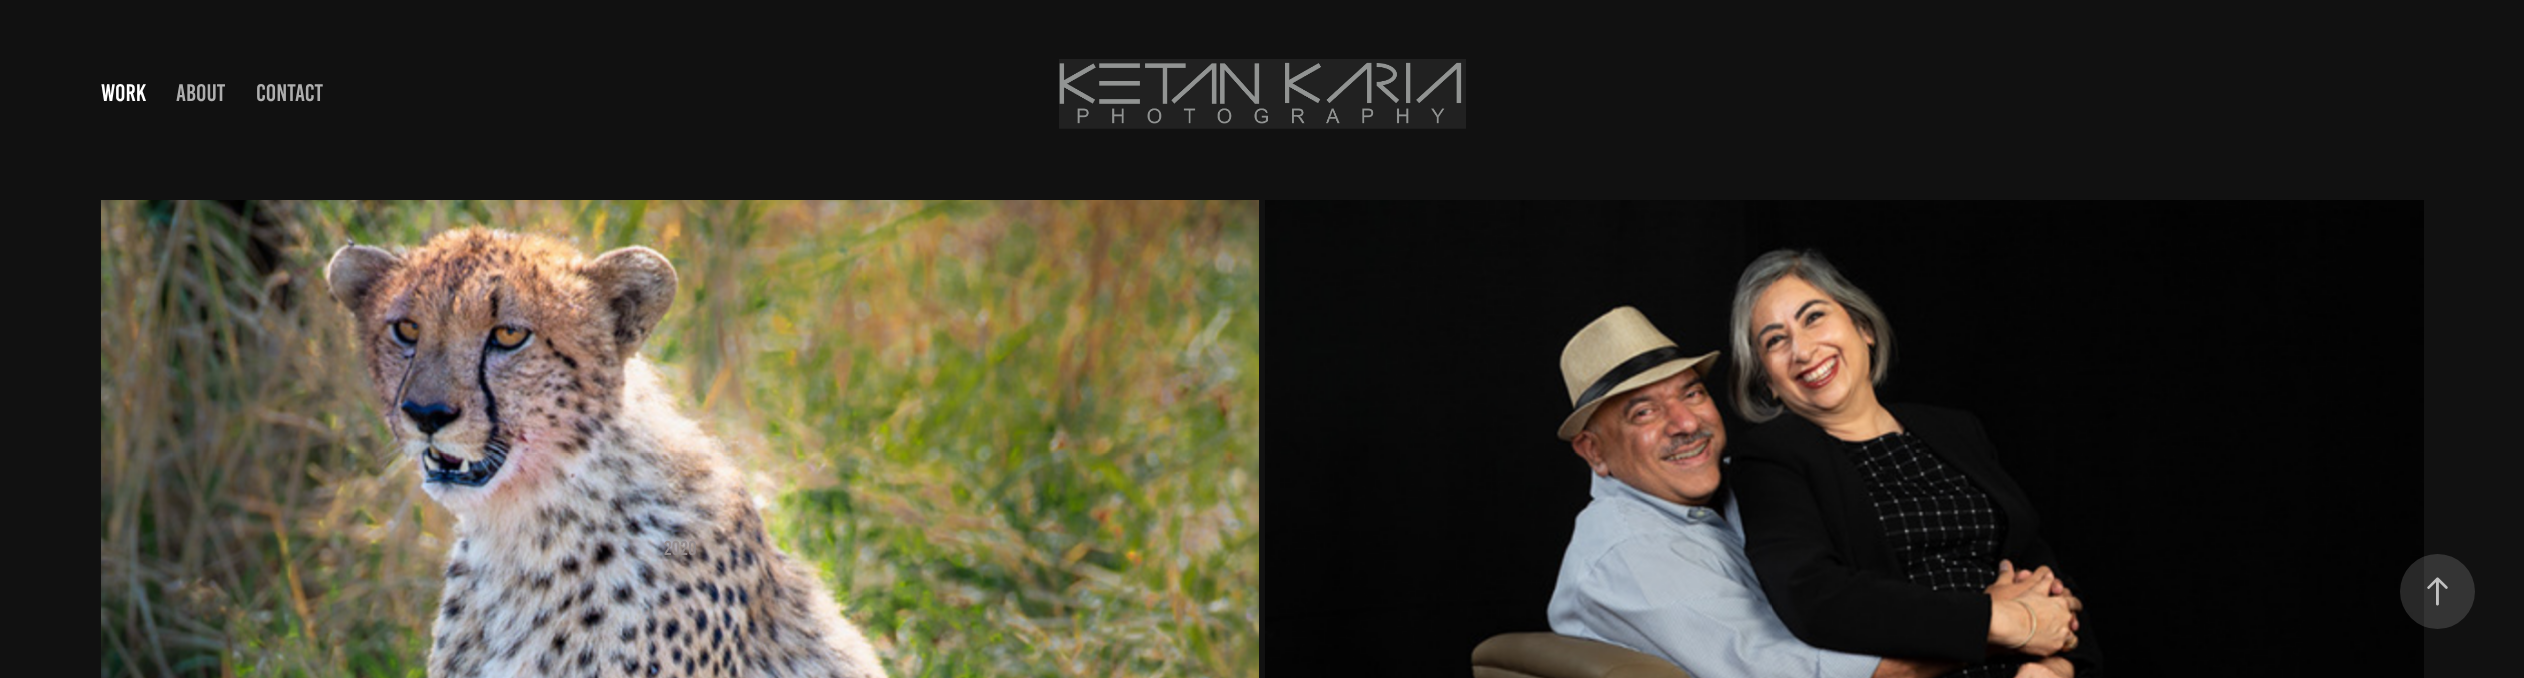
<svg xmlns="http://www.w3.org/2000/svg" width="2524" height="678">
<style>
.a{font:24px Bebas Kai;fill:#fff}
.b{font:24px Bebas Kai;fill:#aeaeae}
.c{font:20px Bebas Kai;fill:#948c8e}
</style>
<rect width="100%" height="100%" fill="#111"/>
<image href="1.png" x="1059" y="59" width="407" height="70"/>
<image href="2.png" x="101" y="200" width="1158" height="478"/>
<image href="3.png" x="1265" y="200" width="1159" height="478"/>
<circle fill="#ffffff26" cx="2437.5" cy="591.5" r="37.5"/>
<image href="4.png" x="2427" y="577" width="21" height="29"/>
<text class="a" x="101" y="101">WORK</text>
<text class="b" x="176" y="101">ABOUT</text>
<text class="b" x="256" y="101">CONTACT</text>
<text class="c" x="664" y="555">2020</text>
</svg>
